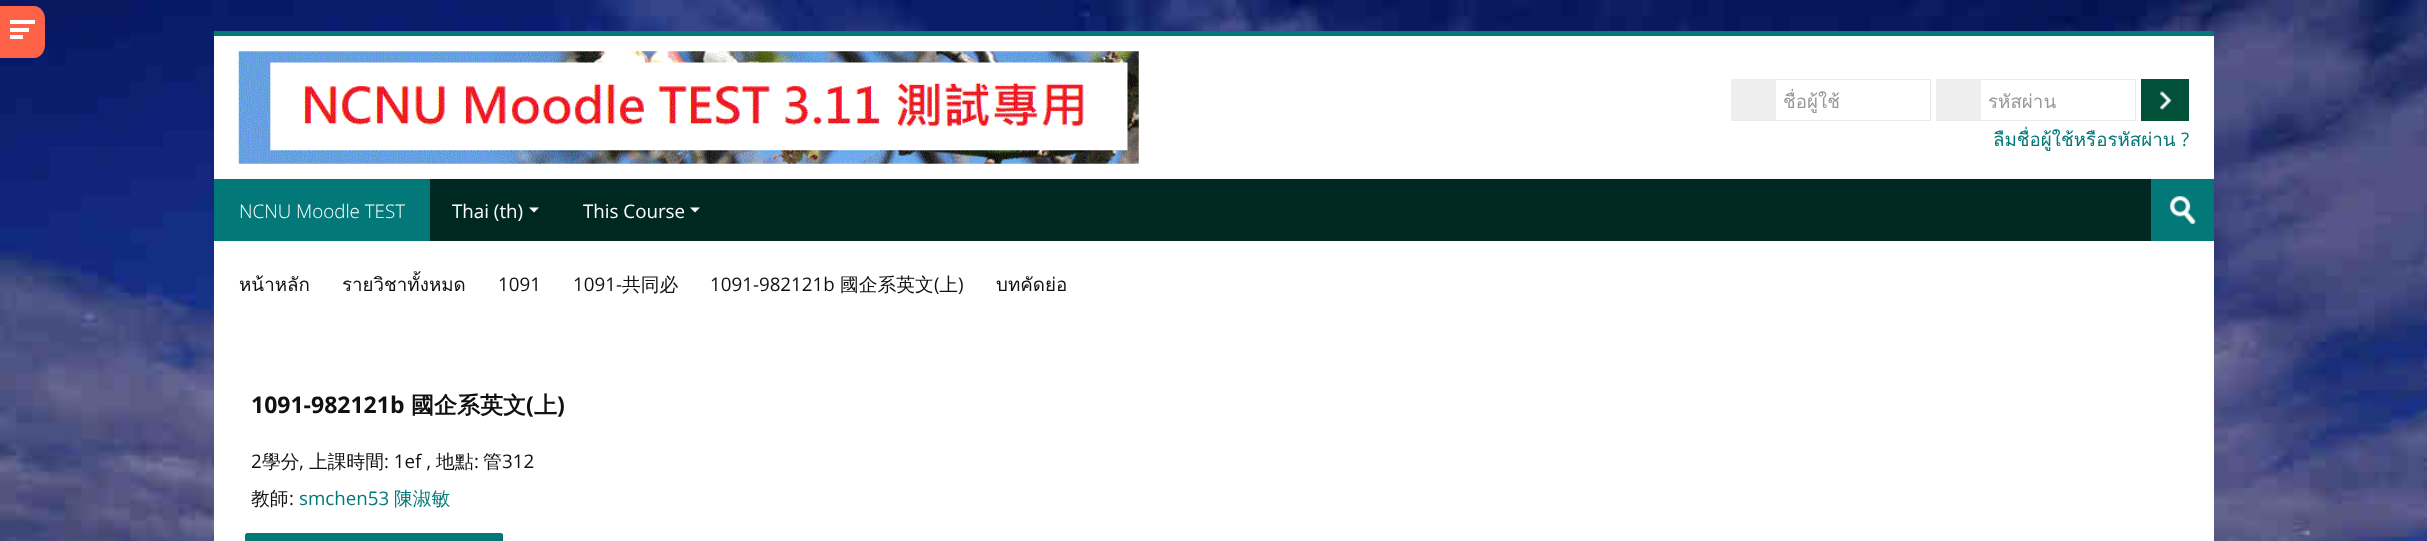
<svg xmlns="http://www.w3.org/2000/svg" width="2427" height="541">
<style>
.a{font:18.75px Loma;fill:#999}
.b{font:18.75px Loma;fill:#027878}
.c{font:18.75px Open Sans;fill:#027878}
.d{font:300 18.75px Open Sans;fill:#fff}
.e{font:18.75px Open Sans;fill:#fff}
.f{font:18.75px Loma;fill:#111}
.g{font:18.75px Open Sans;fill:#111}
.h{font:500 18.75px WenQuanYi Zen Hei;fill:#111}
.i{font:bold 23px Open Sans;fill:#111}
.j{font:bold 23px WenQuanYi Zen Hei;fill:#111}
.k{font:500 18.75px WenQuanYi Zen Hei;fill:#027878}
</style>
<defs>
<clipPath id="clip1"><path d="M1783 86h145v30H1783z"/></clipPath>
</defs>
<rect width="100%" height="100%" fill="#fff"/>
<image href="1.png" x="0" y="0" width="2427" height="541"/>
<path fill="#ff6347" d="M0 6h34c6 0 11 6 11 13v26c0 7-5 13-11 13h-34z"/>
<path fill="#fff" d="M10 20h25v4H10z"/>
<path fill="#fff" d="M10 28h19v4H10z"/>
<path fill="#fff" d="M10 35h13v4H10z"/>
<path fill="#027878" d="M214 31h2000v5H214z"/>
<path fill="#fff" d="M214 36h2000v143H214z"/>
<image href="2.png" x="238" y="51" width="901" height="113"/>
<path fill="none" stroke="#e9e9e9" d="M1731.5 79.5h199v41H1731.5z"/>
<path fill="#eee" d="M1731 79h45v41H1731z"/>
<path fill="none" stroke="#e9e9e9" d="M1936.5 79.5h199v41H1936.5z"/>
<path fill="#eee" d="M1936 79h45v41H1936z"/>
<path fill="#015038" d="M2141 79h48v42H2141z"/>
<image href="3.png" x="2160" y="91" width="12" height="19"/>
<path fill="#00000012" filter="blur(2.5px)" d="M214 180h2000v63H214z"/>
<path fill="#002823" d="M430 179h1721v62H430z"/>
<path fill="#027878" d="M214 179h216v62H214z"/>
<path fill="#fff" d="M529 207.5h10l-5 5z"/>
<path fill="#fff" d="M690 207.5h10l-5 5z"/>
<path fill="#027878" d="M2151 179h63v62H2151z"/>
<image href="4.png" x="2169" y="196" width="27" height="28"/>
<path fill="#fff" d="M214 241h2000v300H214z"/>
<rect fill="#027878" x="245" y="533" width="258" height="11" rx="2.5"/>
<path fill="#0000001a" d="M245 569v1c0 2 1 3 3 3h252c2 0 3-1 3-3v-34c0-1 0-2-1-3v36c0 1-1 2-2 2h-252c-2 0-3-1-3-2z"/>
<g clip-path="url(#clip1)">
<text class="a" x="1783" y="108">ชื่อผู้ใช้</text>
</g>
<text class="a" x="1988" y="108">รหัสผ่าน</text>
<text class="b" x="1993" y="146">ลืมชื่อผู้ใช้หรือรหัสผ่าน</text>
<text class="c" x="2181" y="146">?</text>
<text class="d" x="239" y="218">NCNU Moodle TEST</text>
<text class="e" x="452" y="218">Thai (th)</text>
<text class="e" x="583" y="218">This Course</text>
<text class="f" x="239" y="291">หน้าหลัก</text>
<text class="f" x="342" y="291">รายวิชาทั้งหมด</text>
<text class="g" x="498" y="291">1091</text>
<text class="g" x="573" y="291">1091-</text>
<text class="h" x="622" y="291">共同必</text>
<text class="g" x="710" y="291">1091-982121b</text>
<text class="h" x="840" y="291">國企系英文 上</text>
<text class="f" x="996" y="291">บทคัดย่อ</text>
<text class="g" x="934" y="291">(</text>
<text class="g" x="958" y="291">)</text>
<text class="i" x="251" y="413">1091-982121b</text>
<text class="j" x="411" y="413">國企系英文</text>
<text class="i" x="526" y="413">(</text>
<text class="j" x="534" y="413">上</text>
<text class="i" x="557" y="413">)</text>
<text class="g" x="251" y="468">2</text>
<text class="h" x="262" y="468">學分</text>
<text class="g" x="299" y="468">,</text>
<text class="h" x="309" y="468">上課時間</text>
<text class="g" x="384" y="468">: 1ef ,</text>
<text class="h" x="436" y="468">地點</text>
<text class="g" x="474" y="468">:</text>
<text class="h" x="483" y="468">管</text>
<text class="g" x="502" y="468">312</text>
<text class="h" x="251" y="505">教師</text>
<text class="g" x="289" y="505">:</text>
<text class="c" x="299" y="505">smchen53</text>
<text class="k" x="394" y="505">陳淑敏</text>
</svg>
